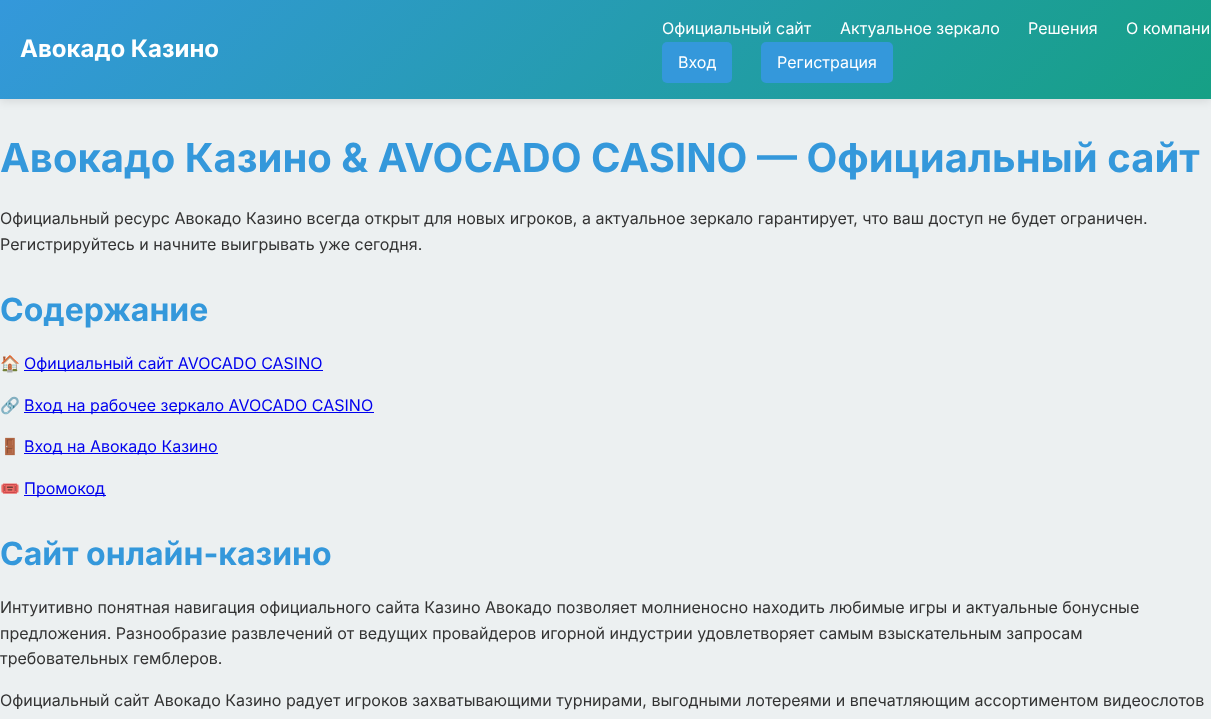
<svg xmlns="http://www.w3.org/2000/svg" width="1211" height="719">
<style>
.a{font:bold 24px Inter;fill:#fff}
.b{font:16px Inter;fill:#fff}
.c{font:bold 40px Inter;fill:#3498db}
.d{font:16px Inter;fill:#333}
.e{font:bold 32px Inter;fill:#3498db}
.f{font:16px Noto Color Emoji;fill:#333}
.g{font:16px Inter;fill:#00e}
</style>
<defs>
<linearGradient id="g1" gradientUnits="userSpaceOnUse" x1="278" y1="-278" x2="933" y2="377"><stop offset="0" stop-color="#3498db"/><stop offset="1" stop-color="#16a085"/></linearGradient>
</defs>
<rect width="100%" height="100%" fill="#ecf0f1"/>
<path fill="#0000001a" filter="blur(5px)" d="M0 2h1211v99H0z"/>
<path fill="url(#g1)" d="M0 0h1211v99H0z"/>
<rect fill="#3498db" x="662" y="42" width="70" height="41" rx="5"/>
<rect fill="#3498db" x="761" y="42" width="132" height="41" rx="5"/>
<path fill="#00e" d="M24 370h299v1H24z"/>
<path fill="#00e" d="M24 412h350v1H24z"/>
<path fill="#00e" d="M24 453h194v1H24z"/>
<path fill="#00e" d="M24 495h82v1H24z"/>
<text class="a" x="20" y="57">Авокадо Казино</text>
<text class="b" x="662" y="34">Официальный сайт</text>
<text class="b" x="840" y="34">Актуальное зеркало</text>
<text class="b" x="1028" y="34">Решения</text>
<text class="b" x="1126" y="34">О компани</text>
<text class="b" x="678" y="68">Вход</text>
<text class="b" x="777" y="68">Регистрация</text>
<text class="c" x="0" y="172">Авокадо Казино &amp; AVOCADO CASINO — Официальный сайт</text>
<text class="d" x="0" y="224">Официальный ресурс Авокадо Казино всегда открыт для новых игроков, а актуальное зеркало гарантирует, что ваш доступ не будет ограничен.</text>
<text class="d" x="0" y="250">Регистрируйтесь и начните выигрывать уже сегодня.</text>
<text class="e" x="0" y="321">Содержание</text>
<text class="f" x="0" y="369">🏠</text>
<text class="g" x="24" y="369">Официальный сайт AVOCADO CASINO</text>
<text class="f" x="0" y="411">🔗</text>
<text class="g" x="24" y="411">Вход на рабочее зеркало AVOCADO CASINO</text>
<text class="f" x="0" y="452">🚪</text>
<text class="g" x="24" y="452">Вход на Авокадо Казино</text>
<text class="f" x="0" y="494">🎟️</text>
<text class="g" x="24" y="494">Промокод</text>
<text class="e" x="0" y="565">Сайт онлайн-казино</text>
<text class="d" x="0" y="613">Интуитивно понятная навигация официального сайта Казино Авокадо позволяет молниеносно находить любимые игры и актуальные бонусные</text>
<text class="d" x="0" y="639">предложения. Разнообразие развлечений от ведущих провайдеров игорной индустрии удовлетворяет самым взыскательным запросам</text>
<text class="d" x="0" y="664">требовательных гемблеров.</text>
<text class="d" x="0" y="706">Официальный сайт Авокадо Казино радует игроков захватывающими турнирами, выгодными лотереями и впечатляющим ассортиментом видеослотов</text>
</svg>
